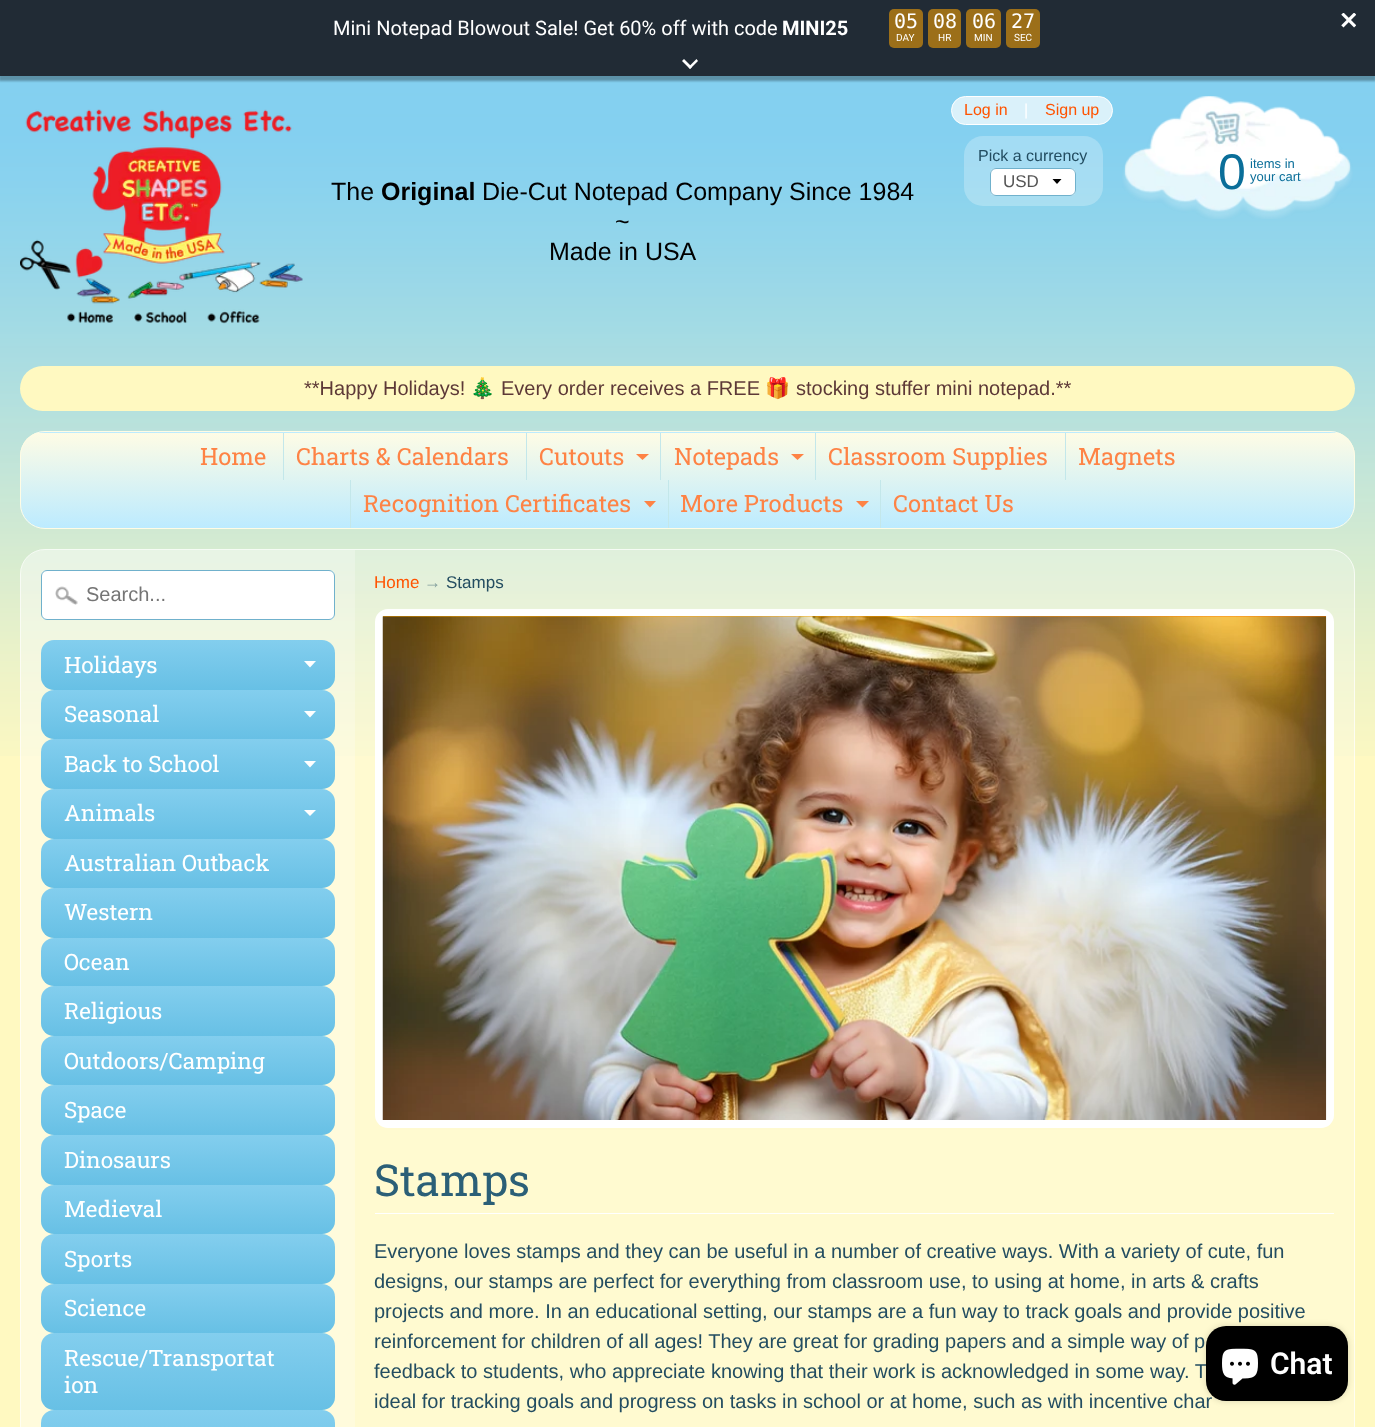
<svg xmlns="http://www.w3.org/2000/svg" width="1375" height="1427">
<style>
.a{font:20px Roboto;fill:#fff}
.b{font:bold 20px Roboto;fill:#fff}
.c{font:20px DejaVu Sans Mono;fill:#fff}
.d{font:10px Roboto;fill:#fff}
.e{font:16px Arimo;fill:#ff5300}
.f{font:16px Arimo;fill:#fff}
.g{font:50px Liberation Sans;fill:#0a6e99}
.h{font:13px Arimo;fill:#0a6e99}
.i{font:25px Arimo;fill:#000}
.j{font:bold 25px Arimo;fill:#000}
.k{font:20px Arimo;fill:#5d3937}
.l{font:20px Noto Color Emoji;fill:#5d3937}
.m{font:23.75px Roboto Slab;fill:#fe8345}
.n{font:16px Arimo;fill:#234d61}
.o{font:17px Arimo;fill:#555}
.p{font:20px Arimo;fill:#757575}
.q{font:22.5px Roboto Slab;fill:#fff}
.r{font:17px Arimo;fill:#ff5300}
.s{font:17px Liberation Sans;fill:#84a09e}
.t{font:17px Arimo;fill:#234d61}
.u{font:44px Roboto Slab;fill:#2b5f77}
.v{font:20px Arimo;fill:#234d61}
.w{font:600 30px Roboto;fill:#fff}
</style>
<defs>
<clipPath id="clip1"><rect x="20" y="431" width="1335" height="98" rx="25"/></clipPath>
<linearGradient id="g1" gradientUnits="userSpaceOnUse" x1="688" y1="337" x2="688" y2="433"><stop offset="0" stop-color="#fffce5"/><stop offset="1" stop-color="#bcebff"/></linearGradient>
<linearGradient id="g2" gradientUnits="userSpaceOnUse" x1="688" y1="432" x2="688" y2="528"><stop offset="0" stop-color="#fffce5"/><stop offset="1" stop-color="#bcebff"/></linearGradient>
<linearGradient id="g3" gradientUnits="userSpaceOnUse" x1="188" y1="640" x2="188" y2="690"><stop offset="0" stop-color="#83ceee"/><stop offset="1" stop-color="#67c0e5"/></linearGradient>
<linearGradient id="g4" gradientUnits="userSpaceOnUse" x1="188" y1="690" x2="188" y2="739"><stop offset="0" stop-color="#83ceee"/><stop offset="1" stop-color="#67c0e5"/></linearGradient>
<linearGradient id="g5" gradientUnits="userSpaceOnUse" x1="188" y1="739" x2="188" y2="789"><stop offset="0" stop-color="#83ceee"/><stop offset="1" stop-color="#67c0e5"/></linearGradient>
<linearGradient id="g6" gradientUnits="userSpaceOnUse" x1="188" y1="789" x2="188" y2="839"><stop offset="0" stop-color="#83ceee"/><stop offset="1" stop-color="#67c0e5"/></linearGradient>
<linearGradient id="g7" gradientUnits="userSpaceOnUse" x1="188" y1="839" x2="188" y2="888"><stop offset="0" stop-color="#83ceee"/><stop offset="1" stop-color="#67c0e5"/></linearGradient>
<linearGradient id="g8" gradientUnits="userSpaceOnUse" x1="188" y1="888" x2="188" y2="938"><stop offset="0" stop-color="#83ceee"/><stop offset="1" stop-color="#67c0e5"/></linearGradient>
<linearGradient id="g9" gradientUnits="userSpaceOnUse" x1="188" y1="938" x2="188" y2="986"><stop offset="0" stop-color="#83ceee"/><stop offset="1" stop-color="#67c0e5"/></linearGradient>
<linearGradient id="g10" gradientUnits="userSpaceOnUse" x1="188" y1="986" x2="188" y2="1036"><stop offset="0" stop-color="#83ceee"/><stop offset="1" stop-color="#67c0e5"/></linearGradient>
<linearGradient id="g11" gradientUnits="userSpaceOnUse" x1="188" y1="1036" x2="188" y2="1085"><stop offset="0" stop-color="#83ceee"/><stop offset="1" stop-color="#67c0e5"/></linearGradient>
<linearGradient id="g12" gradientUnits="userSpaceOnUse" x1="188" y1="1085" x2="188" y2="1135"><stop offset="0" stop-color="#83ceee"/><stop offset="1" stop-color="#67c0e5"/></linearGradient>
<linearGradient id="g13" gradientUnits="userSpaceOnUse" x1="188" y1="1135" x2="188" y2="1185"><stop offset="0" stop-color="#83ceee"/><stop offset="1" stop-color="#67c0e5"/></linearGradient>
<linearGradient id="g14" gradientUnits="userSpaceOnUse" x1="188" y1="1185" x2="188" y2="1234"><stop offset="0" stop-color="#83ceee"/><stop offset="1" stop-color="#67c0e5"/></linearGradient>
<linearGradient id="g15" gradientUnits="userSpaceOnUse" x1="188" y1="1234" x2="188" y2="1284"><stop offset="0" stop-color="#83ceee"/><stop offset="1" stop-color="#67c0e5"/></linearGradient>
<linearGradient id="g16" gradientUnits="userSpaceOnUse" x1="188" y1="1284" x2="188" y2="1333"><stop offset="0" stop-color="#83ceee"/><stop offset="1" stop-color="#67c0e5"/></linearGradient>
<linearGradient id="g17" gradientUnits="userSpaceOnUse" x1="188" y1="1333" x2="188" y2="1410"><stop offset="0" stop-color="#83ceee"/><stop offset="1" stop-color="#67c0e5"/></linearGradient>
<linearGradient id="g18" gradientUnits="userSpaceOnUse" x1="188" y1="1410" x2="188" y2="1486"><stop offset="0" stop-color="#83ceee"/><stop offset="1" stop-color="#67c0e5"/></linearGradient>
<linearGradient id="g19" gradientUnits="userSpaceOnUse" x1="493" y1="506" x2="1216" y2="1230"><stop offset="0.3" stop-color="#ffa800"/><stop offset="1" stop-color="#fc4500"/></linearGradient>
</defs>
<rect width="100%" height="100%" fill="#fff9c1"/>
<image href="1.png" x="0" y="76" width="1375" height="680"/>
<path fill="#0000004d" filter="blur(1px)" d="M-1 3h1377v78H-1z"/>
<path fill="#212b35" d="M0 0h1375v76H0z"/>
<rect fill="#9c6f19" x="889" y="9" width="34" height="39" rx="5"/>
<rect fill="#9c6f19" x="928" y="9" width="33" height="39" rx="5"/>
<rect fill="#9c6f19" x="966" y="9" width="35" height="39" rx="5"/>
<rect fill="#9c6f19" x="1006" y="9" width="34" height="39" rx="5"/>
<image href="2.png" x="1341" y="13" width="15" height="15"/>
<path fill="#fff" d="M698 61l-8 8l-1.5-2l8-8z"/>
<path fill="#fff" d="M692 67l-2 2l-8-8l2-2z"/>
<rect fill="#daf1fa" stroke="#fff" x="951.5" y="96.5" width="161" height="28" rx="14"/>
<image href="3.png" x="1122" y="96" width="231" height="123"/>
<image href="4.png" x="20" y="109" width="283" height="215"/>
<rect fill="#fff9c1" x="20" y="366" width="1335" height="45" rx="22.5"/>
<g clip-path="url(#clip1)">
<path fill="url(#g1)" d="M35 431h1305v2H35z"/>
<path fill="url(#g2)" d="M20 433h1335v95H20z"/>
</g>
<rect fill="none" stroke="#fffce5" x="20.5" y="431.5" width="1334" height="97" rx="24.5"/>
<path fill="#c3e7ea" d="M283 433h1v47H283z"/>
<path fill="#c3e7ea" d="M526 433h1v47H526z"/>
<path fill="#fe8345" d="M636 454h13l-6.5 6z"/>
<path fill="#c3e7ea" d="M660 433h1v47H660z"/>
<path fill="#fe8345" d="M791 454h13l-6.5 6z"/>
<path fill="#c3e7ea" d="M815 433h1v47H815z"/>
<path fill="#c3e7ea" d="M1065 433h1v47H1065z"/>
<path fill="#c3e7ea" d="M350 480h1v48H350z"/>
<path fill="#fe8345" d="M644 501h12l-6 6.5z"/>
<path fill="#c3e7ea" d="M668 480h1v48H668z"/>
<path fill="#fe8345" d="M856 501h13l-6.5 6.5z"/>
<path fill="#c3e7ea" d="M880 480h1v48H880z"/>
<rect fill="#ffffff40" x="964" y="136" width="139" height="70" rx="19"/>
<rect fill="#fff" x="990" y="168" width="86" height="28" rx="6"/>
<path fill="#000" d="M1052.5 179l4.5 5l4.5-5z"/>
<rect fill="none" stroke="#70b1cc" x="990.5" y="168.5" width="85" height="27" rx="5.5"/>
<rect fill="#ffffff40" x="20" y="549" width="1335" height="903" rx="25"/>
<rect fill="none" stroke="#ffffffb3" x="20.5" y="549.5" width="1334" height="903" rx="24.5"/>
<path fill="#ffffff40" d="M45 550h310v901h-334v-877c0-13.5 10.5-24 24-24z"/>
<rect fill="#fff" x="41" y="570" width="294" height="50" rx="6"/>
<image href="5.png" x="55" y="586" width="23" height="19"/>
<rect fill="none" stroke="#70b1cc" x="41.5" y="570.5" width="293" height="49" rx="5.5"/>
<rect fill="url(#g3)" x="41" y="640" width="294" height="50" rx="13"/>
<path fill="#fff" d="M304 661h12l-6 6.5z"/>
<rect fill="url(#g4)" x="41" y="690" width="294" height="49" rx="13"/>
<path fill="#fff" d="M304 711h12l-6 6.5z"/>
<rect fill="url(#g5)" x="41" y="739" width="294" height="50" rx="13"/>
<path fill="#fff" d="M304 761h12l-6 6.5z"/>
<rect fill="url(#g6)" x="41" y="789" width="294" height="50" rx="13"/>
<path fill="#fff" d="M304 810h12l-6 6z"/>
<rect fill="url(#g7)" x="41" y="839" width="294" height="49" rx="13"/>
<rect fill="url(#g8)" x="41" y="888" width="294" height="50" rx="13"/>
<rect fill="url(#g9)" x="41" y="938" width="294" height="48" rx="13"/>
<rect fill="url(#g10)" x="41" y="986" width="294" height="50" rx="13"/>
<rect fill="url(#g11)" x="41" y="1036" width="294" height="49" rx="13"/>
<rect fill="url(#g12)" x="41" y="1085" width="294" height="50" rx="13"/>
<rect fill="url(#g13)" x="41" y="1135" width="294" height="50" rx="13"/>
<rect fill="url(#g14)" x="41" y="1185" width="294" height="49" rx="13"/>
<rect fill="url(#g15)" x="41" y="1234" width="294" height="50" rx="13"/>
<rect fill="url(#g16)" x="41" y="1284" width="294" height="49" rx="13"/>
<rect fill="url(#g17)" x="41" y="1333" width="294" height="77" rx="13"/>
<rect fill="url(#g18)" x="41" y="1410" width="294" height="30" rx="13"/>
<rect fill="#fff" x="375" y="609" width="959" height="519" rx="13"/>
<path fill="url(#g19)" d="M383 616h943v1H383z"/>
<image href="6.png" x="382" y="616" width="945" height="504"/>
<path fill="#fff" d="M375 1213h959v1H375z"/>
<rect fill="#00000026" filter="blur(3px)" x="1206" y="1326" width="142" height="75" rx="20"/>
<text class="a" x="333" y="35">Mini Notepad Blowout Sale! Get 60% off with code</text>
<text class="b" x="782" y="35">MINI25</text>
<text class="c" x="894" y="28">05</text>
<text class="d" x="896" y="41">DAY</text>
<text class="c" x="933" y="28">08</text>
<text class="d" x="938" y="41">HR</text>
<text class="c" x="972" y="28">06</text>
<text class="d" x="974" y="41">MIN</text>
<text class="c" x="1011" y="28">27</text>
<text class="d" x="1014" y="41">SEC</text>
<text class="e" x="964" y="115">Log in</text>
<text class="f" x="1024" y="115">|</text>
<text class="e" x="1045" y="115">Sign up</text>
<text class="g" x="1218" y="189">0</text>
<text class="h" x="1250" y="168">items in</text>
<text class="h" x="1250" y="181">your cart</text>
<text class="i" x="331" y="200">The</text>
<text class="j" x="381" y="200">Original</text>
<text class="i" x="482" y="200">Die-Cut Notepad Company Since 1984</text>
<text class="i" x="615" y="230">~</text>
<text class="i" x="549" y="260">Made in USA</text>
<text class="k" x="304" y="395">**Happy Holidays!</text>
<text class="l" x="470" y="395">🎄</text>
<text class="k" x="501" y="395">Every order receives a FREE</text>
<text class="l" x="765" y="395">🎁</text>
<text class="k" x="796" y="395">stocking stuffer mini notepad.**</text>
<text class="m" x="200" y="465">Home</text>
<text class="m" x="296" y="465">Charts &amp; Calendars</text>
<text class="m" x="539" y="465">Cutouts</text>
<text class="m" x="674" y="465">Notepads</text>
<text class="m" x="828" y="465">Classroom Supplies</text>
<text class="m" x="1078" y="465">Magnets</text>
<text class="m" x="363" y="512">Recognition Certificates</text>
<text class="m" x="680" y="512">More Products</text>
<text class="m" x="893" y="512">Contact Us</text>
<text class="n" x="978" y="161">Pick a currency</text>
<text class="o" x="1003" y="187">USD</text>
<text class="p" x="86" y="601">Search...</text>
<text class="q" x="64" y="673">Holidays</text>
<text class="q" x="64" y="722">Seasonal</text>
<text class="q" x="64" y="772">Back to School</text>
<text class="q" x="64" y="821">Animals</text>
<text class="q" x="64" y="871">Australian Outback</text>
<text class="q" x="64" y="920">Western</text>
<text class="q" x="64" y="970">Ocean</text>
<text class="q" x="64" y="1019">Religious</text>
<text class="q" x="64" y="1069">Outdoors/Camping</text>
<text class="q" x="64" y="1118">Space</text>
<text class="q" x="64" y="1168">Dinosaurs</text>
<text class="q" x="64" y="1217">Medieval</text>
<text class="q" x="64" y="1267">Sports</text>
<text class="q" x="64" y="1316">Science</text>
<text class="q" x="64" y="1366">Rescue/Transportat</text>
<text class="q" x="64" y="1393">ion</text>
<text class="r" x="374" y="588">Home</text>
<text class="s" x="424" y="588">→</text>
<text class="t" x="446" y="588">Stamps</text>
<text class="u" x="374" y="1196">Stamps</text>
<text class="v" x="374" y="1258">Everyone loves stamps and they can be useful in a number of creative ways. With a variety of cute, fun</text>
<text class="v" x="374" y="1288">designs, our stamps are perfect for everything from classroom use, to using at home, in arts &amp; crafts</text>
<text class="v" x="374" y="1318">projects and more. In an educational setting, our stamps are a fun way to track goals and provide positive</text>
<text class="v" x="374" y="1348">reinforcement for children of all ages! They are great for grading papers and a simple way of p</text>
<text class="v" x="374" y="1378">feedback to students, who appreciate knowing that their work is acknowledged in some way. T</text>
<text class="v" x="374" y="1408">ideal for tracking goals and progress on tasks in school or at home, such as with incentive char</text>
<rect fill="#000" x="1206" y="1326" width="142" height="75" rx="20"/>
<image href="7.png" x="1222" y="1348" width="36" height="37"/>
<text class="w" x="1270" y="1374">Chat</text>
</svg>
